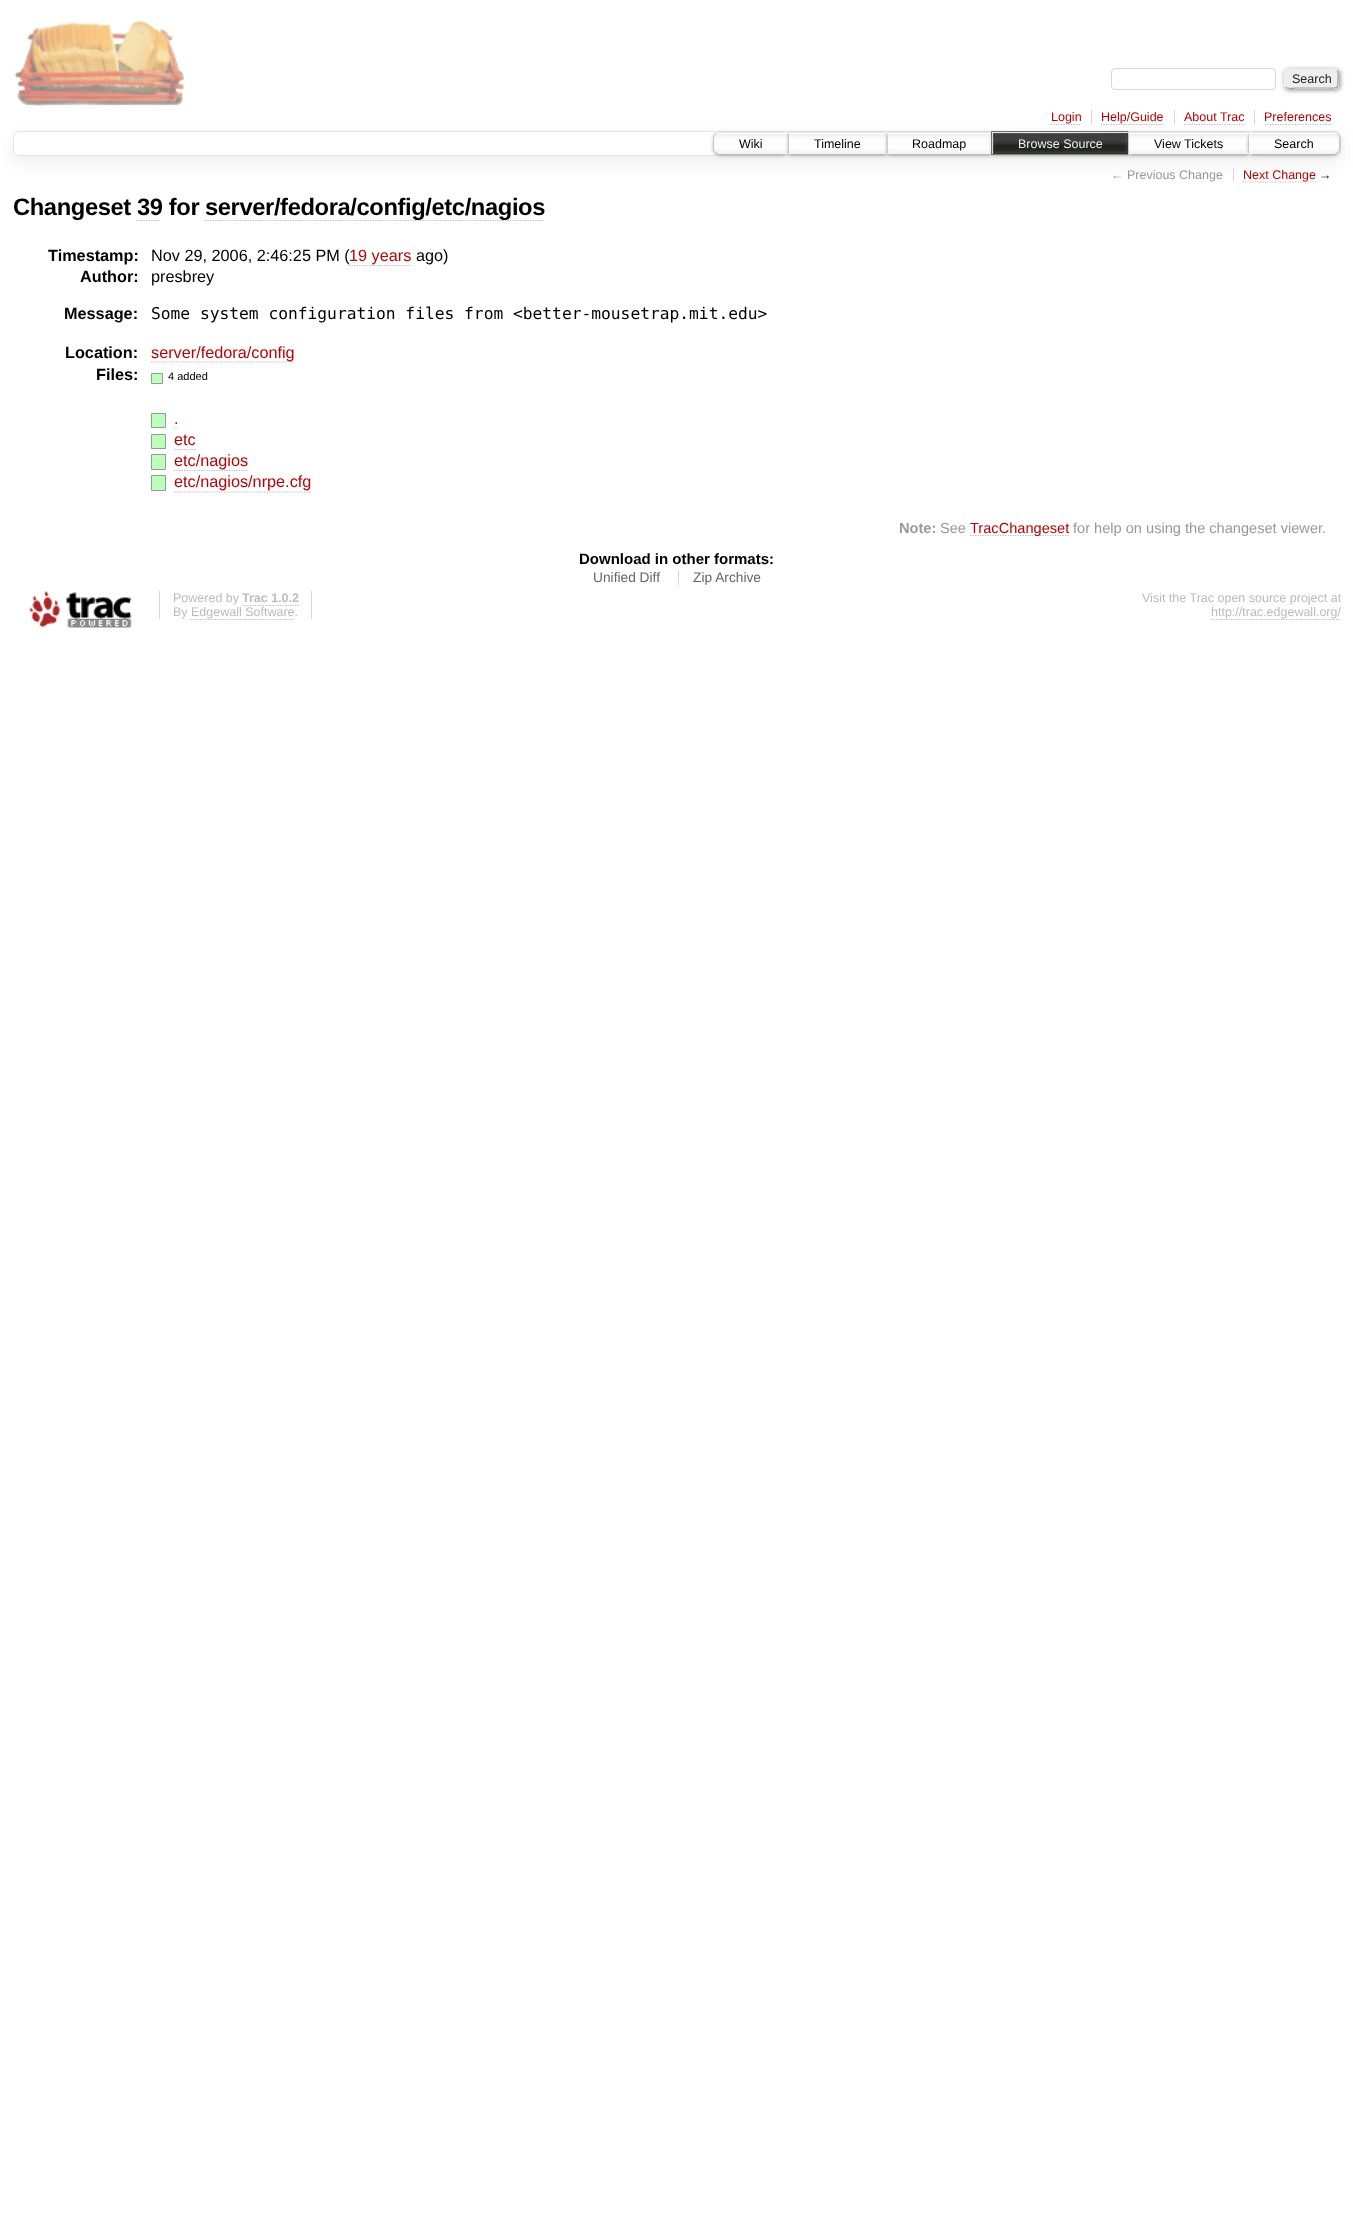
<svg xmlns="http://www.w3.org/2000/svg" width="1353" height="2215">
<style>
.a{font:12.5px Liberation Sans;fill:#222}
.b{font:12.5px Liberation Sans;fill:#b00}
.c{font:12.5px Liberation Sans;fill:#000}
.d{font:12.5px Liberation Sans;fill:#eee}
.e{font:12.5px Liberation Sans;fill:#998}
.f{font:bold 23.75px Liberation Sans;letter-spacing:-0.4px;fill:#000}
.g{font:bold 16.25px Liberation Sans;fill:#000}
.h{font:16.25px Liberation Sans;fill:#000}
.i{font:16.25px Liberation Sans;fill:#b00}
.j{font:16.25px DejaVu Sans Mono;fill:#000}
.k{font:11px Liberation Sans;fill:#000}
.l{font:bold 14.6px Liberation Sans;fill:#999}
.m{font:14.6px Liberation Sans;fill:#999}
.n{font:14.6px Liberation Sans;fill:#b00}
.o{font:bold 15px Liberation Sans;fill:#000}
.p{font:13.75px Liberation Sans;fill:#666}
.q{font:12.5px Liberation Sans;fill:#bbb}
.r{font:bold 12.5px Liberation Sans;fill:#bbb}
</style>
<defs>
<clipPath id="clip1"><path d="M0 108h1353v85h-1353zm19 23h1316c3.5 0 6 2.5 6 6v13c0 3.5-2.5 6-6 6h-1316c-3.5 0-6-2.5-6-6v-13c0-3.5 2.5-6 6-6z" clip-rule="evenodd"/></clipPath>
<clipPath id="clip2"><path d="M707 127h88v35h-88zm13 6h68v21h-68c-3.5 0-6-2.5-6-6v-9c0-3.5 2.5-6 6-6z" clip-rule="evenodd"/></clipPath>
<clipPath id="clip3"><path d="M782 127h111v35h-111zm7 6h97v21h-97z" clip-rule="evenodd"/></clipPath>
<clipPath id="clip4"><path d="M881 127h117v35h-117zm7 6h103v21h-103z" clip-rule="evenodd"/></clipPath>
<clipPath id="clip5"><path d="M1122 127h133v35h-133zm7 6h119v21h-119z" clip-rule="evenodd"/></clipPath>
<clipPath id="clip6"><path d="M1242 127h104v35h-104zm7 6h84c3.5 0 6 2.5 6 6v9c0 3.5-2.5 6-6 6h-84z" clip-rule="evenodd"/></clipPath>
</defs>
<rect width="100%" height="100%" fill="#fff"/>
<image href="1.png" x="15" y="21" width="169" height="86"/>
<rect fill="none" stroke="#d7d7d7" x="1111.5" y="68.5" width="164" height="21" rx="3.5"/>
<rect fill="#888" filter="blur(2.5px)" x="1285" y="70" width="55" height="20" rx="4"/>
<rect fill="#eee" x="1284" y="69" width="55" height="20" rx="4"/>
<path fill="none" stroke="#9f9f9f" stroke-width="1.2" d="M1337 70.5c2 2 1 6 1 8.5c0 10.5 .5 9-11 9h-31.5c-.5 0-8 1.5-10-1"/>
<path fill="none" stroke="#eee" stroke-width="1.2" d="M1285.5 87c-2-2-1-6-1-8c0-11-.5-9.5 11-9.5h31.5c.5 0 8-1.5 10 1"/>
<g clip-path="url(#clip1)">
<rect fill="#eee" filter="blur(9.5px)" x="13" y="138" width="1328" height="25" rx="6"/>
</g>
<path fill="#d7d7d7" d="M1091 110h1v14H1091z"/>
<path fill="none" stroke="#bbb" stroke-width="1.2" stroke-dasharray="1.25 1.25" d="M1051 124.5h30"/>
<path fill="#d7d7d7" d="M1174 110h1v14H1174z"/>
<path fill="none" stroke="#bbb" stroke-width="1.2" stroke-dasharray="1.25 1.25" d="M1101 124.5h63"/>
<path fill="#d7d7d7" d="M1254 110h1v14H1254z"/>
<path fill="none" stroke="#bbb" stroke-width="1.2" stroke-dasharray="1.25 1.25" d="M1184 124.5h61"/>
<path fill="none" stroke="#bbb" stroke-width="1.2" stroke-dasharray="1.25 1.25" d="M1265 124.5h67.5"/>
<rect fill="none" stroke="#e4e4e4" x="13.5" y="131.5" width="1327" height="24" rx="5.5"/>
<path fill="#fff" d="M719 131h70v24h-70c-3.5 0-6-2.5-6-6v-12c0-3.5 2.5-6 6-6z"/>
<image href="2.png" x="713" y="134" width="75" height="21"/>
<path fill="none" stroke="#e4e4e4" d="M719 131.5h69.5v23h-69.5c-3 0-5.5-2.5-5.5-5.5v-12c0-3 2.5-5.5 5.5-5.5z"/>
<g clip-path="url(#clip2)">
<rect fill="#999" filter="blur(2px)" x="714" y="134" width="74" height="21" rx="6"/>
</g>
<path fill="#fff" d="M789 134h3v20H789z"/>
<image href="3.png" x="787" y="134" width="99" height="20"/>
<path fill="none" stroke="#e4e4e4" d="M788.5 131.5h99v23H788.5z"/>
<g clip-path="url(#clip3)">
<path fill="#999" filter="blur(2px)" d="M789 134h97v21H789z"/>
</g>
<path fill="#fff" d="M887 132h3v22H887z"/>
<image href="4.png" x="887" y="134" width="104" height="20"/>
<path fill="none" stroke="#e4e4e4" d="M886.5 131.5h106v23H886.5z"/>
<g clip-path="url(#clip4)">
<path fill="#999" filter="blur(2px)" d="M888 134h103v21H888z"/>
</g>
<path fill="#fff" d="M992 132h3v22H992z"/>
<image href="5.png" x="992" y="134" width="1" height="20"/>
<path fill="none" stroke="#666" d="M991.5 131.5h137v23H991.5z"/>
<path fill="#999" filter="blur(2px)" d="M993 134h135v21H993z"/>
<path fill="#000" d="M993 133h135v21H993z"/>
<image href="6.png" x="993" y="132" width="135" height="22"/>
<path fill="#fff" d="M1129 132h3v22H1129z"/>
<image href="7.png" x="1127" y="134" width="121" height="20"/>
<path fill="none" stroke="#e4e4e4" d="M1128.5 131.5h120v23H1128.5z"/>
<g clip-path="url(#clip5)">
<path fill="#999" filter="blur(2px)" d="M1129 134h119v21H1129z"/>
</g>
<path fill="#fff" d="M1248 131h86c3.5 0 6 2.5 6 6v12c0 3.5-2.5 6-6 6h-86z"/>
<image href="8.png" x="1249" y="134" width="91" height="21"/>
<path fill="none" stroke="#e4e4e4" d="M1248.5 131.5h85.5c3 0 5.5 2.5 5.5 5.5v12c0 3-2.5 5.5-5.5 5.5h-85.5z"/>
<g clip-path="url(#clip6)">
<rect fill="#999" filter="blur(2px)" x="1249" y="134" width="90" height="21" rx="6"/>
</g>
<path fill="#d7d7d7" d="M1233 168h1v13H1233z"/>
<path fill="none" stroke="#bbb" stroke-width="1.2" stroke-dasharray="1.25 1.25" d="M1242.5 182h73.5"/>
<path fill="none" stroke="#bbb" stroke-width="1.2" stroke-dasharray="1.25 1.25" d="M205 220.5h339"/>
<path fill="none" stroke="#bbb" stroke-width="1.2" stroke-dasharray="1.25 1.25" d="M151 362h143"/>
<path fill="#bfb" stroke="#999" d="M151.5 373.5h11v10H151.5z"/>
<path fill="#bfb" stroke="#999" d="M151.5 413.5h14v14H151.5z"/>
<path fill="none" stroke="#bbb" stroke-width="1.2" d="M174 428h1m1.5 0h1"/>
<path fill="#bfb" stroke="#999" d="M151.5 434.5h14v14H151.5z"/>
<path fill="none" stroke="#bbb" stroke-width="1.2" stroke-dasharray="1.25 1.25" d="M174 449.5h22"/>
<path fill="#bfb" stroke="#999" d="M151.5 454.5h14v15H151.5z"/>
<path fill="none" stroke="#bbb" stroke-width="1.2" stroke-dasharray="1.25 1.25" d="M174 470.5h75"/>
<path fill="#bfb" stroke="#999" d="M151.5 475.5h14v15H151.5z"/>
<path fill="none" stroke="#bbb" stroke-width="1.2" stroke-dasharray="1.25 1.25" d="M174 492h137"/>
<path fill="none" stroke="#bbb" stroke-width="1.2" stroke-dasharray="1.25 1.25" d="M970 535.5h99"/>
<path fill="#d7d7d7" d="M678 570h1v15H678z"/>
<image href="9.png" x="29" y="591" width="103" height="37"/>
<path fill="#d7d7d7" d="M311 591h1v28H311z"/>
<path fill="#d7d7d7" d="M159 591h1v28H159z"/>
<path fill="none" stroke="#bbb" stroke-width="1.2" stroke-dasharray="1.25 1.25" d="M242.5 605.5h56.5"/>
<path fill="none" stroke="#bbb" stroke-width="1.2" stroke-dasharray="1.25 1.25" d="M190 619.5h104"/>
<path fill="none" stroke="#bbb" stroke-width="1.2" stroke-dasharray="1.25 1.25" d="M1211 619.5h130"/>
<text class="a" x="1292" y="83">Search</text>
<text class="b" x="1051" y="121">Login</text>
<text class="b" x="1101" y="121">Help/Guide</text>
<text class="b" x="1184" y="121">About Trac</text>
<text class="b" x="1264" y="121">Preferences</text>
<text class="c" x="739" y="148">Wiki</text>
<text class="c" x="814" y="148">Timeline</text>
<text class="c" x="912" y="148">Roadmap</text>
<text class="d" x="1018" y="148">Browse Source</text>
<text class="c" x="1154" y="148">View Tickets</text>
<text class="c" x="1274" y="148">Search</text>
<text class="e" x="1111" y="179">← Previous Change</text>
<text class="b" x="1243" y="179">Next Change</text>
<text class="c" x="1319" y="179">→</text>
<text class="f" x="13" y="215">Changeset 39 for</text>
<text class="f" x="205" y="215">server/fedora/config/etc/nagios</text>
<path fill="none" stroke="#bbb" stroke-width="1.2" stroke-dasharray="1.25 1.25" d="M136 220.5h25"/>
<text class="g" x="48" y="261">Timestamp:</text>
<text class="h" x="151" y="261">Nov 29, 2006, 2:46:25 PM (</text>
<path fill="none" stroke="#bbb" stroke-width="1.2" stroke-dasharray="1.25 1.25" d="M349 265.5h62"/>
<text class="i" x="349" y="261">19 years</text>
<text class="h" x="416" y="261">ago)</text>
<text class="g" x="80" y="282">Author:</text>
<text class="h" x="151" y="282">presbrey</text>
<text class="g" x="64" y="319">Message:</text>
<text class="j" x="151" y="319">Some system configuration files from &lt;better-mousetrap.mit.edu&gt;</text>
<text class="g" x="65" y="358">Location:</text>
<text class="i" x="151" y="358">server/fedora/config</text>
<text class="g" x="96" y="380">Files:</text>
<text class="k" x="168" y="380">4 added</text>
<text class="i" x="174" y="424">.</text>
<text class="i" x="174" y="445">etc</text>
<text class="i" x="174" y="466">etc/nagios</text>
<text class="i" x="174" y="487">etc/nagios/nrpe.cfg</text>
<text class="l" x="899" y="533">Note:</text>
<text class="m" x="940" y="533">See</text>
<text class="n" x="970" y="533">TracChangeset</text>
<text class="m" x="1073" y="533">for help on using the changeset viewer.</text>
<text class="o" x="579" y="564">Download in other formats:</text>
<text class="p" x="593" y="582">Unified Diff</text>
<text class="p" x="693" y="582">Zip Archive</text>
<text class="q" x="173" y="602">Powered by</text>
<text class="r" x="242" y="602">Trac 1.0.2</text>
<text class="q" x="173" y="616">By</text>
<text class="q" x="191" y="616">Edgewall Software.</text>
<text class="q" x="1142" y="602">Visit the Trac open source project at</text>
<text class="q" x="1211" y="616">http://trac.edgewall.org/</text>
</svg>
